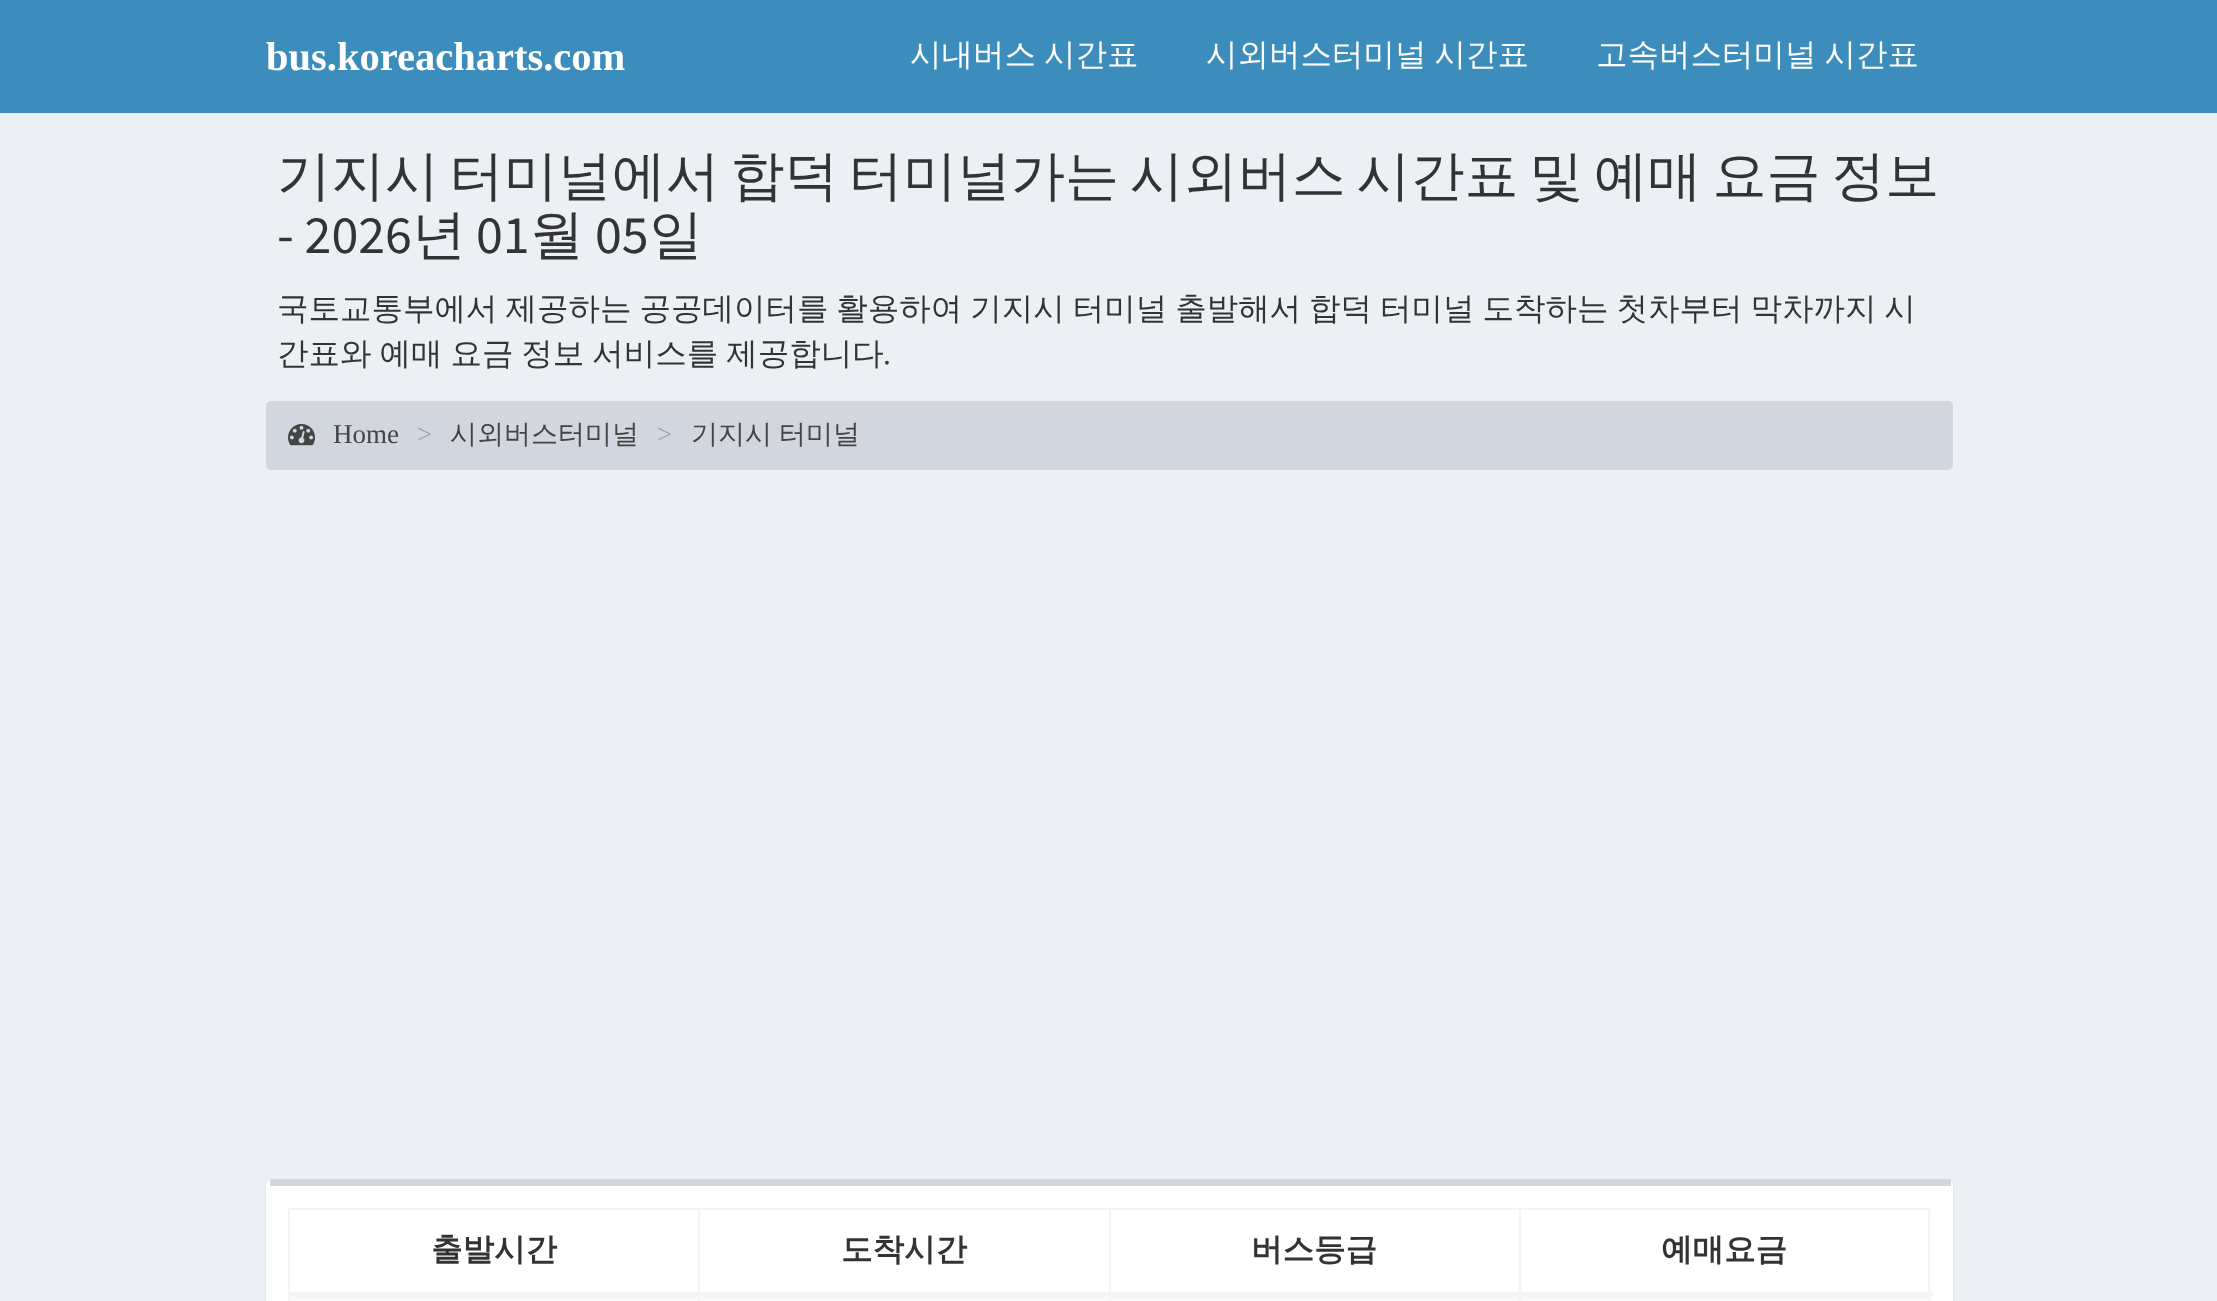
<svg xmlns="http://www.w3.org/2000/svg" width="2217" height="1301">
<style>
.a{font:bold 40.5px Liberation Serif;fill:#fff}
.b{font:500 31.5px WenQuanYi Zen Hei;fill:#fff}
.c{font:500 54px WenQuanYi Zen Hei;fill:#333}
.d{font:54px Source Sans Pro;fill:#333}
.e{font:500 31.5px WenQuanYi Zen Hei;fill:#333}
.f{font:31.5px Liberation Serif;fill:#333}
.g{font:27px Liberation Serif;fill:#444}
.h{font:27px Liberation Serif;fill:#97a0b3}
.i{font:500 27px WenQuanYi Zen Hei;fill:#444}
.j{font:bold 31.5px WenQuanYi Zen Hei;fill:#333}
</style>
<rect width="100%" height="100%" fill="#ecf0f5"/>
<path fill="#3c8dbc" d="M0 0h2217v113H0z"/>
<rect fill="#d2d6de" x="266" y="401" width="1687" height="69" rx="5"/>
<image href="1.png" x="288" y="424" width="27" height="22"/>
<rect fill="#0000001a" filter="blur(1px)" x="266" y="1181" width="1687" height="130" rx="7"/>
<rect fill="#fff" x="266" y="1179" width="1687" height="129" rx="7"/>
<path fill="#d2d6de" d="M270 1179h1681v7H270z"/>
<path fill="#f4f4f4" d="M288 1208h1643v2H288z"/>
<path fill="#f9f9f9" d="M290 1297h1641v4H290z"/>
<path fill="#f4f4f4" d="M1928 1208h2v93H1928z"/>
<path fill="#f4f4f4" d="M288 1208h2v93H288z"/>
<path fill="#f4f4f4" d="M698 1208h2v93H698z"/>
<path fill="#f4f4f4" d="M1109 1208h2v93H1109z"/>
<path fill="#f4f4f4" d="M1519 1208h2v93H1519z"/>
<path fill="#f4f4f4" d="M288 1292h1645v5H288z"/>
<text class="a" x="266" y="70">bus.koreacharts.com</text>
<text class="b" x="910" y="65" word-spacing="-1.5">시내버스 시간표</text>
<text class="b" x="1206" y="65" word-spacing="-1.5">시외버스터미널 시간표</text>
<text class="b" x="1596" y="65" word-spacing="-1.5">고속버스터미널 시간표</text>
<text class="c" x="277" y="194" word-spacing="-5.5">기지시 터미널에서 합덕 터미널가는 시외버스 시간표 및 예매 요금 정보</text>
<text class="d" x="277" y="253">- 2026</text>
<text class="c" x="412" y="253">년</text>
<text class="d" x="476" y="253">01</text>
<text class="c" x="530" y="253">월</text>
<text class="d" x="595" y="253">05</text>
<text class="c" x="649" y="253">일</text>
<text class="e" x="277" y="319" word-spacing="-1.5">국토교통부에서 제공하는 공공데이터를 활용하여 기지시 터미널 출발해서 합덕 터미널 도착하는 첫차부터 막차까지 시</text>
<text class="e" x="277" y="364" word-spacing="-1.5">간표와 예매 요금 정보 서비스를 제공합니다</text>
<text class="f" x="883" y="364">.</text>
<text class="g" x="333" y="443">Home</text>
<text class="h" x="417" y="443">&gt;</text>
<text class="i" x="450" y="443">시외버스터미널</text>
<text class="h" x="657" y="443">&gt;</text>
<text class="i" x="691" y="443" word-spacing="-1">기지시 터미널</text>
<text class="j" x="431" y="1260">출발시간</text>
<text class="j" x="841" y="1260">도착시간</text>
<text class="j" x="1251" y="1260">버스등급</text>
<text class="j" x="1661" y="1260">예매요금</text>
</svg>
